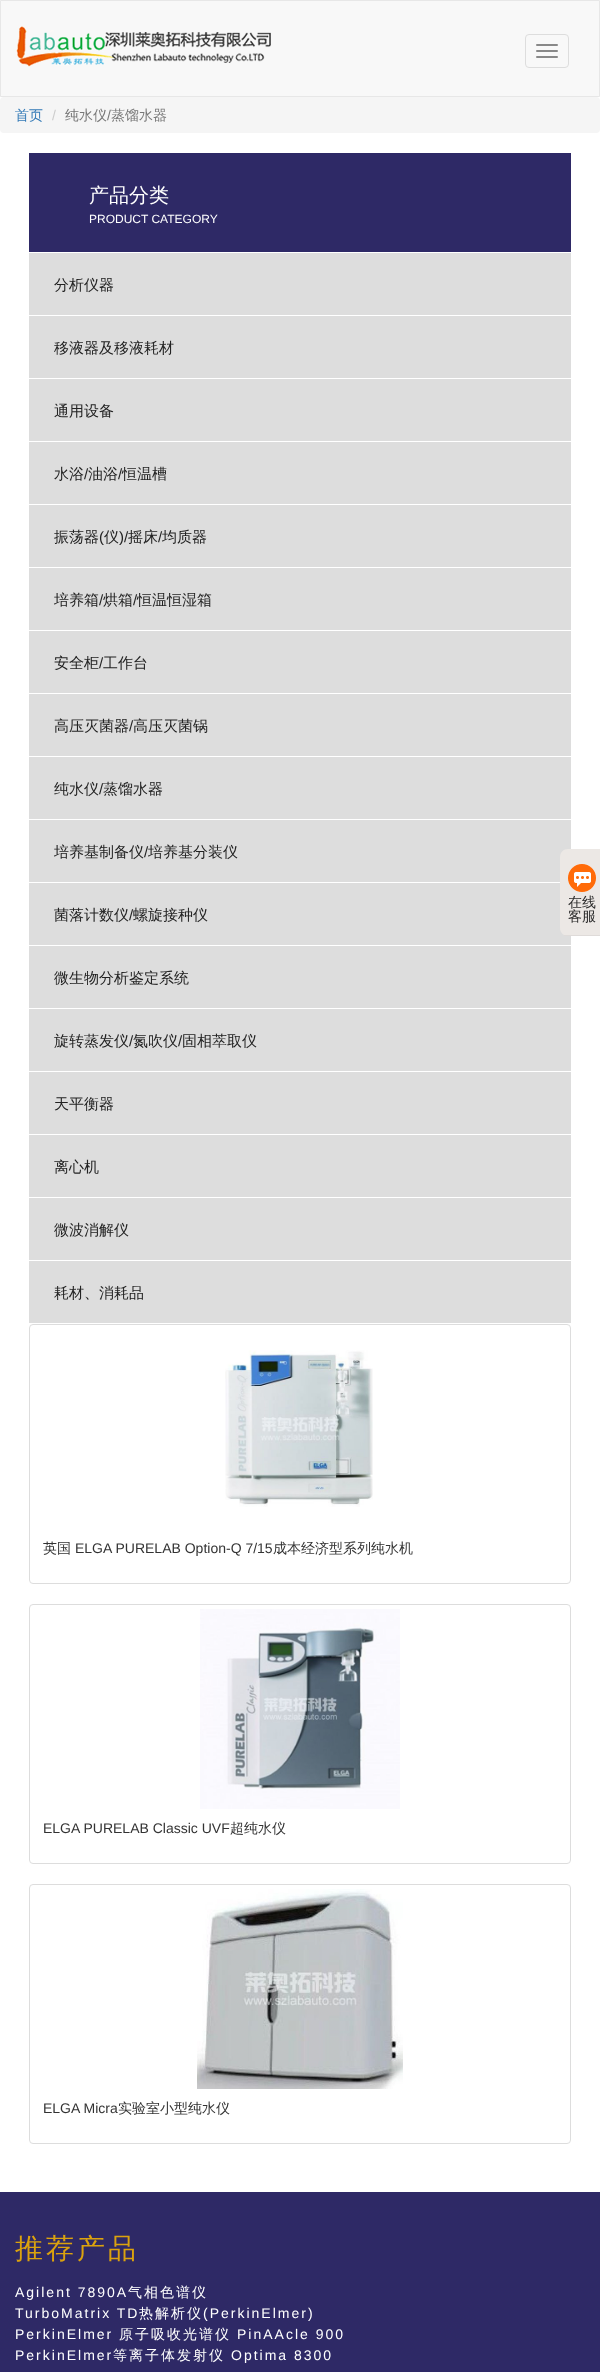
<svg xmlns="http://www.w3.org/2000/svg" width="600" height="2372">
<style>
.a{font:500 14px WenQuanYi Zen Hei;fill:#337ab7}
.b{font:14px Liberation Sans;fill:#ccc}
.c{font:500 14px WenQuanYi Zen Hei;fill:#777}
.d{font:14px Liberation Sans;fill:#777}
.e{font:500 20px WenQuanYi Zen Hei;fill:#fff}
.f{font:12px Liberation Sans;fill:#fff}
.g{font:500 15px WenQuanYi Zen Hei;fill:#222}
.h{font:15px Liberation Sans;fill:#222}
.i{font:500 14px WenQuanYi Zen Hei;fill:#333}
.j{font:14px Liberation Sans;fill:#333}
.k{font:500 14px WenQuanYi Zen Hei;fill:#2c2c2c}
.l{font:500 28px WenQuanYi Zen Hei;letter-spacing:3px;fill:#dba20e}
.m{font:14px Liberation Sans;letter-spacing:2px;fill:#fff}
.n{font:500 14px WenQuanYi Zen Hei;letter-spacing:2px;fill:#fff}
</style>
<rect width="100%" height="100%" fill="#fff"/>
<path fill="#f8f8f8" stroke="#e7e7e7" d="M0.5 0.5h599v96H0.5z"/>
<image href="1.png" x="16" y="26" width="255" height="41"/>
<rect fill="none" stroke="#ddd" x="525.5" y="34.5" width="43" height="33" rx="3.5"/>
<rect fill="#888" x="536" y="44" width="22" height="2" rx="1"/>
<rect fill="#888" x="536" y="50" width="22" height="2" rx="1"/>
<rect fill="#888" x="536" y="56" width="22" height="2" rx="1"/>
<rect fill="#f5f5f5" y="97" width="600" height="36" rx="4"/>
<path fill="#2e2966" d="M29 153h542v99H29z"/>
<path fill="#ddd" d="M29 253h542v62H29z"/>
<path fill="#ddd" d="M29 316h542v62H29z"/>
<path fill="#ddd" d="M29 379h542v62H29z"/>
<path fill="#ddd" d="M29 442h542v62H29z"/>
<path fill="#ddd" d="M29 505h542v62H29z"/>
<path fill="#ddd" d="M29 568h542v62H29z"/>
<path fill="#ddd" d="M29 631h542v62H29z"/>
<path fill="#ddd" d="M29 694h542v62H29z"/>
<path fill="#ddd" d="M29 757h542v62H29z"/>
<path fill="#ddd" d="M29 820h542v62H29z"/>
<path fill="#ddd" d="M29 883h542v62H29z"/>
<path fill="#ddd" d="M29 946h542v62H29z"/>
<path fill="#ddd" d="M29 1009h542v62H29z"/>
<path fill="#ddd" d="M29 1072h542v62H29z"/>
<path fill="#ddd" d="M29 1135h542v62H29z"/>
<path fill="#ddd" d="M29 1198h542v62H29z"/>
<path fill="#ddd" d="M29 1261h542v62H29z"/>
<rect fill="none" stroke="#ddd" x="29.5" y="1324.5" width="541" height="259" rx="3.5"/>
<image href="2.png" x="225" y="1350" width="148" height="157"/>
<rect fill="none" stroke="#ddd" x="29.5" y="1604.5" width="541" height="259" rx="3.5"/>
<image href="3.png" x="200" y="1609" width="200" height="200"/>
<rect fill="none" stroke="#ddd" x="29.5" y="1884.5" width="541" height="259" rx="3.5"/>
<image href="4.png" x="197" y="1889" width="206" height="200"/>
<path fill="#2e2966" d="M0 2192h600v180H0z"/>
<path fill="#ece8e5" d="M568 849h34v87h-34c-4.5 0-8-3.5-8-8v-71c0-4.5 3.5-8 8-8z"/>
<path fill="#dfdbd9" d="M564 935h36v1H564z"/>
<image href="5.png" x="568" y="864" width="28" height="28"/>
<text class="a" x="15" y="120">首页</text>
<text class="b" x="52" y="120">/</text>
<text class="c" x="65" y="120">纯水仪</text>
<text class="d" x="107" y="120">/</text>
<text class="c" x="111" y="120">蒸馏水器</text>
<text class="e" x="89" y="202">产品分类</text>
<text class="f" x="89" y="223">PRODUCT CATEGORY</text>
<text class="g" x="54" y="290">分析仪器</text>
<text class="g" x="54" y="353">移液器及移液耗材</text>
<text class="g" x="54" y="416">通用设备</text>
<text class="g" x="54" y="479">水浴</text>
<text class="h" x="84" y="479">/</text>
<text class="g" x="88" y="479">油浴</text>
<text class="h" x="118" y="479">/</text>
<text class="g" x="122" y="479">恒温槽</text>
<text class="g" x="54" y="542">振荡器</text>
<text class="h" x="99" y="542">(</text>
<text class="g" x="104" y="542">仪</text>
<text class="h" x="119" y="542">)/</text>
<text class="g" x="128" y="542">摇床</text>
<text class="h" x="158" y="542">/</text>
<text class="g" x="162" y="542">均质器</text>
<text class="g" x="54" y="605">培养箱</text>
<text class="h" x="99" y="605">/</text>
<text class="g" x="103" y="605">烘箱</text>
<text class="h" x="133" y="605">/</text>
<text class="g" x="137" y="605">恒温恒湿箱</text>
<text class="g" x="54" y="668">安全柜</text>
<text class="h" x="99" y="668">/</text>
<text class="g" x="103" y="668">工作台</text>
<text class="g" x="54" y="731">高压灭菌器</text>
<text class="h" x="129" y="731">/</text>
<text class="g" x="133" y="731">高压灭菌锅</text>
<text class="g" x="54" y="794">纯水仪</text>
<text class="h" x="99" y="794">/</text>
<text class="g" x="103" y="794">蒸馏水器</text>
<text class="g" x="54" y="857">培养基制备仪</text>
<text class="h" x="144" y="857">/</text>
<text class="g" x="148" y="857">培养基分装仪</text>
<text class="g" x="54" y="920">菌落计数仪</text>
<text class="h" x="129" y="920">/</text>
<text class="g" x="133" y="920">螺旋接种仪</text>
<text class="g" x="54" y="983">微生物分析鉴定系统</text>
<text class="g" x="54" y="1046">旋转蒸发仪</text>
<text class="h" x="129" y="1046">/</text>
<text class="g" x="133" y="1046">氮吹仪</text>
<text class="h" x="178" y="1046">/</text>
<text class="g" x="182" y="1046">固相萃取仪</text>
<text class="g" x="54" y="1109">天平衡器</text>
<text class="g" x="54" y="1172">离心机</text>
<text class="g" x="54" y="1235">微波消解仪</text>
<text class="g" x="54" y="1298">耗材、消耗品</text>
<text class="i" x="43" y="1553">英国</text>
<text class="j" x="75" y="1553">ELGA PURELAB Option-Q 7/15</text>
<text class="i" x="273" y="1553">成本经济型系列纯水机</text>
<text class="j" x="43" y="1833">ELGA PURELAB Classic UVF</text>
<text class="i" x="230" y="1833">超纯水仪</text>
<text class="j" x="43" y="2113">ELGA Micra</text>
<text class="i" x="118" y="2113">实验室小型纯水仪</text>
<text class="k" x="568" y="907">在线</text>
<text class="k" x="568" y="921">客服</text>
<text class="l" x="15" y="2258">推荐产品</text>
<text class="m" x="15" y="2297">Agilent 7890A</text>
<text class="n" x="128" y="2297">气相色谱仪</text>
<text class="m" x="15" y="2318">TurboMatrix TD</text>
<text class="n" x="139" y="2318">热解析仪</text>
<text class="m" x="203" y="2318">(PerkinElmer)</text>
<text class="m" x="15" y="2339">PerkinElmer</text>
<text class="n" x="119" y="2339">原子吸收光谱仪</text>
<text class="m" x="237" y="2339">PinAAcle 900</text>
<text class="m" x="15" y="2360">PerkinElmer</text>
<text class="n" x="113" y="2360">等离子体发射仪</text>
<text class="m" x="231" y="2360">Optima 8300</text>
</svg>
